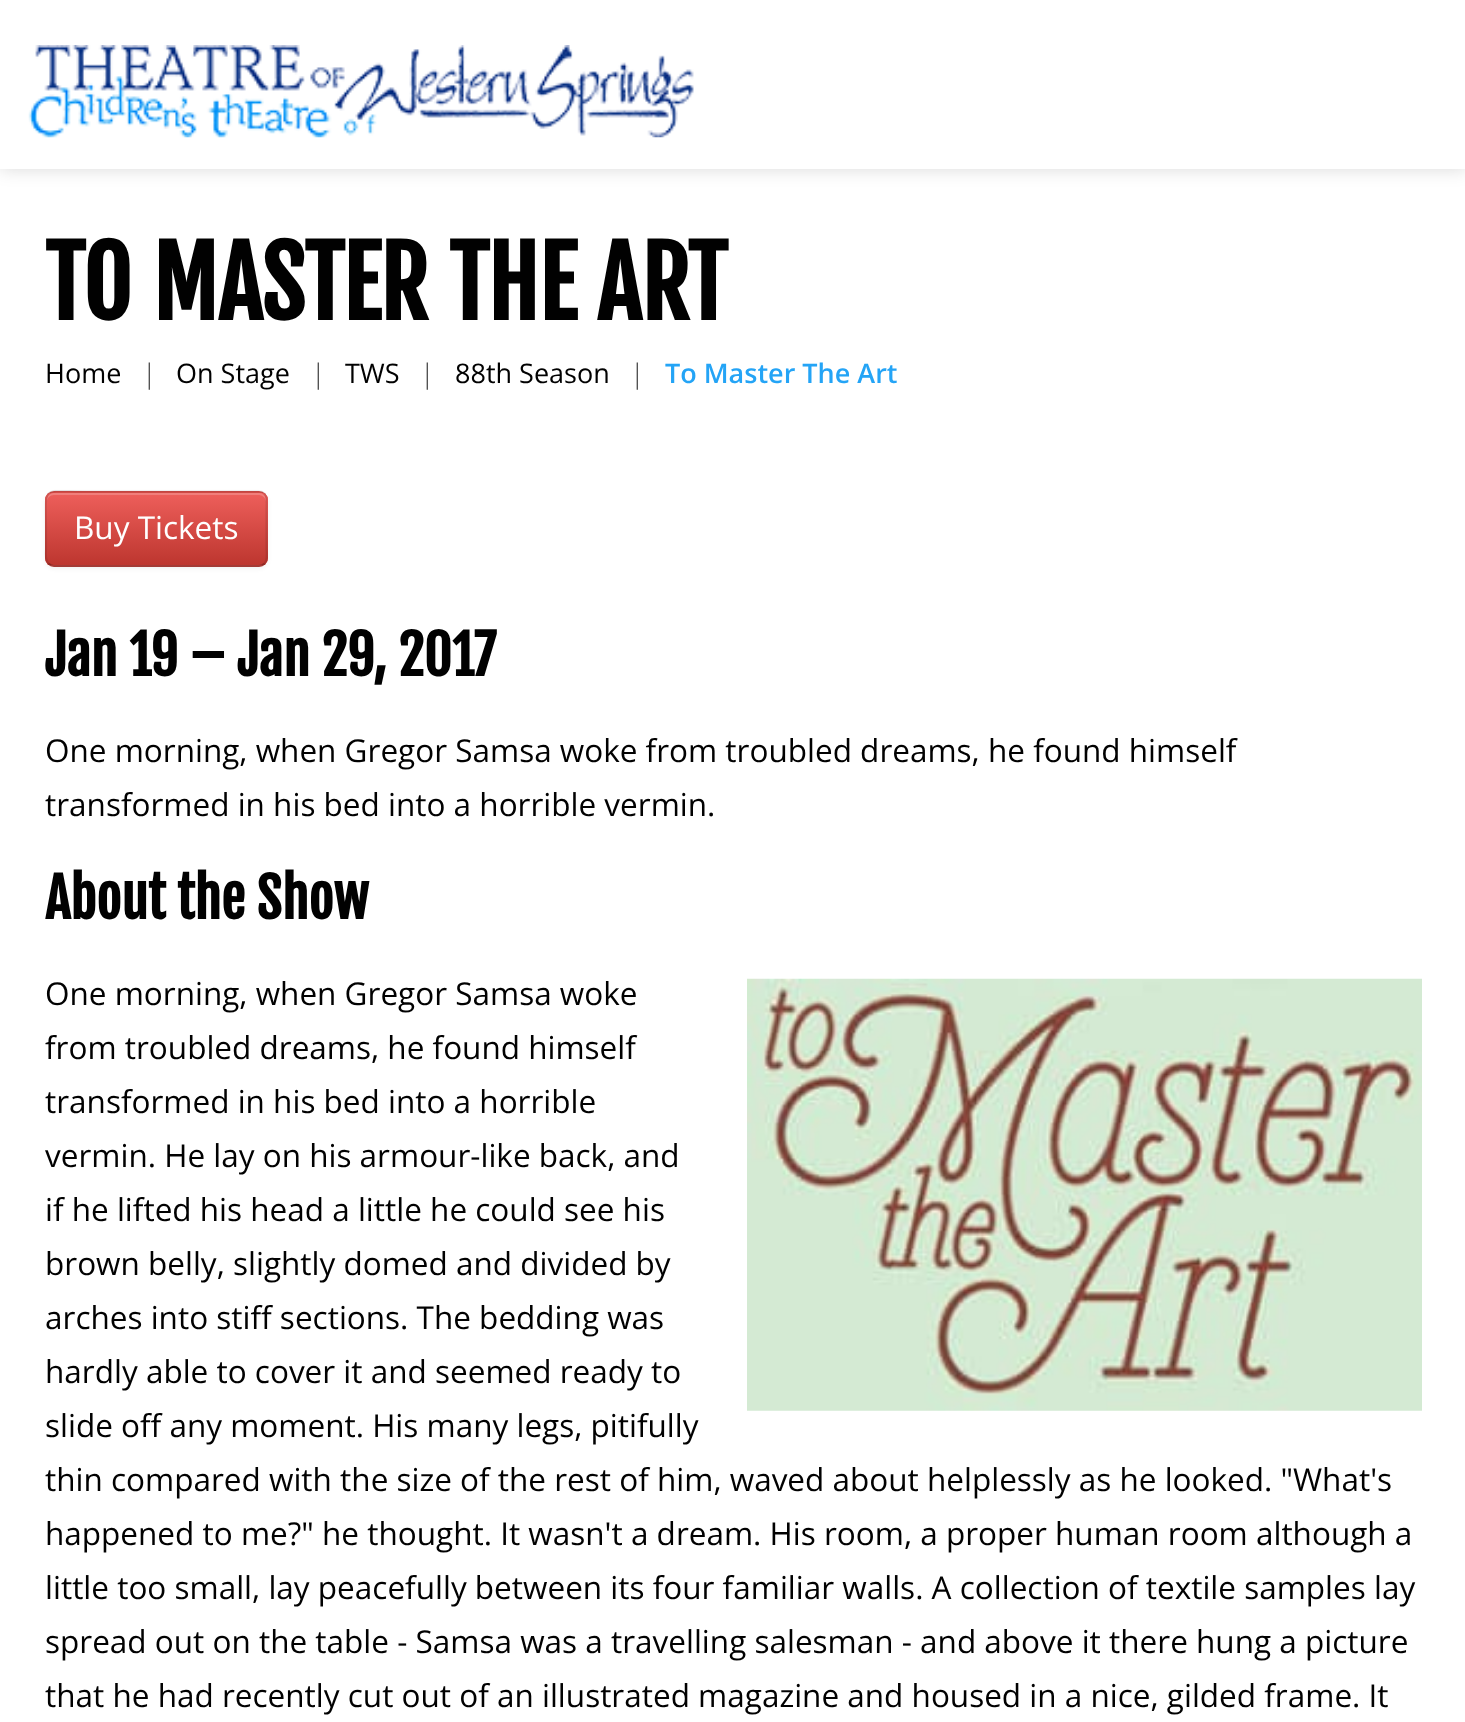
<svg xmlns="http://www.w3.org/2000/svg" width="1465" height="1722">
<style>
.a{font:bold 94.5px Fjalla One;fill:#010101}
.b{font:27px Open Sans;fill:#010101}
.c{font:300 27px Open Sans;fill:#333}
.d{font:600 27px Open Sans;fill:#24a4f6}
.e{font:31.5px Open Sans;fill:#fff}
.f{font:bold 54px Fjalla One;fill:#010101}
.g{font:31.5px Open Sans;fill:#010101}
</style>
<defs>
<clipPath id="clip1"><rect x="45" y="491" width="223" height="76" rx="9"/></clipPath>
<linearGradient id="g1" gradientUnits="userSpaceOnUse" x1="156" y1="493" x2="156" y2="565"><stop offset="0" stop-color="#ee5f5b"/><stop offset="1" stop-color="#bd362f"/></linearGradient>
</defs>
<rect width="100%" height="100%" fill="#fff"/>
<path fill="#00000026" filter="blur(9px)" d="M0 0h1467v169H0z"/>
<path fill="#fff" d="M0 0h1465v169H0z"/>
<image href="1.png" x="28" y="45" width="666" height="93"/>
<rect fill="#0000000d" filter="blur(2px)" x="45" y="493" width="223" height="76" rx="9"/>
<rect fill="#da4f49" x="45" y="491" width="223" height="76" rx="9"/>
<g clip-path="url(#clip1)">
<path fill="url(#g1)" d="M45 493h223v72H45z"/>
</g>
<path fill="#ffffff33" d="M54 495h205c3 0 7 3 7 7v-2c0-4-3-7-7-7h-205c-4 0-7 3-7 7v2c0-4 3-7 7-7z"/>
<path fill="none" stroke="#00000040" stroke-width="2.2" d="M264.5 563.5c-1.5 1.5-3.5 2.5-5.5 2.5h-205c-2 0-4-1-5.5-2.5"/>
<path fill="none" stroke="#0000001a" stroke-width="2.2" d="M48.5 563.5c-4-3.5-2.5-11-2.5-15.5v-19c0-45-6-37.5 42-37.5h171c9.5 0 7.5 11.5 7.5 17.5v39c0 4.5 1.5 12-2 15.5"/>
<image href="2.png" x="747" y="978" width="675" height="433"/>
<text class="a" x="45" y="320">TO MASTER THE ART</text>
<text class="b" x="45" y="383">Home</text>
<text class="c" x="142" y="383">|</text>
<text class="b" x="176" y="383">On Stage</text>
<text class="c" x="311" y="383">|</text>
<text class="b" x="345" y="383">TWS</text>
<text class="c" x="420" y="383">|</text>
<text class="b" x="455" y="383">88th Season</text>
<text class="c" x="630" y="383">|</text>
<text class="d" x="665" y="383">To Master The Art</text>
<text class="e" x="74" y="539">Buy Tickets</text>
<text class="f" x="45" y="676">Jan 19 – Jan 29, 2017</text>
<text class="g" x="45" y="762">One morning, when Gregor Samsa woke from troubled dreams, he found himself</text>
<text class="g" x="45" y="816">transformed in his bed into a horrible vermin.</text>
<text class="f" x="45" y="919">About the Show</text>
<text class="g" x="45" y="1005">One morning, when Gregor Samsa woke</text>
<text class="g" x="45" y="1059">from troubled dreams, he found himself</text>
<text class="g" x="45" y="1113">transformed in his bed into a horrible</text>
<text class="g" x="45" y="1167">vermin. He lay on his armour-like back, and</text>
<text class="g" x="45" y="1221">if he lifted his head a little he could see his</text>
<text class="g" x="45" y="1275">brown belly, slightly domed and divided by</text>
<text class="g" x="45" y="1329">arches into stiff sections. The bedding was</text>
<text class="g" x="45" y="1383">hardly able to cover it and seemed ready to</text>
<text class="g" x="45" y="1437">slide off any moment. His many legs, pitifully</text>
<text class="g" x="45" y="1491">thin compared with the size of the rest of him, waved about helplessly as he looked. "What's</text>
<text class="g" x="45" y="1545">happened to me?" he thought. It wasn't a dream. His room, a proper human room although a</text>
<text class="g" x="45" y="1599">little too small, lay peacefully between its four familiar walls. A collection of textile samples lay</text>
<text class="g" x="45" y="1653">spread out on the table - Samsa was a travelling salesman - and above it there hung a picture</text>
<text class="g" x="45" y="1707">that he had recently cut out of an illustrated magazine and housed in a nice, gilded frame. It</text>
</svg>
